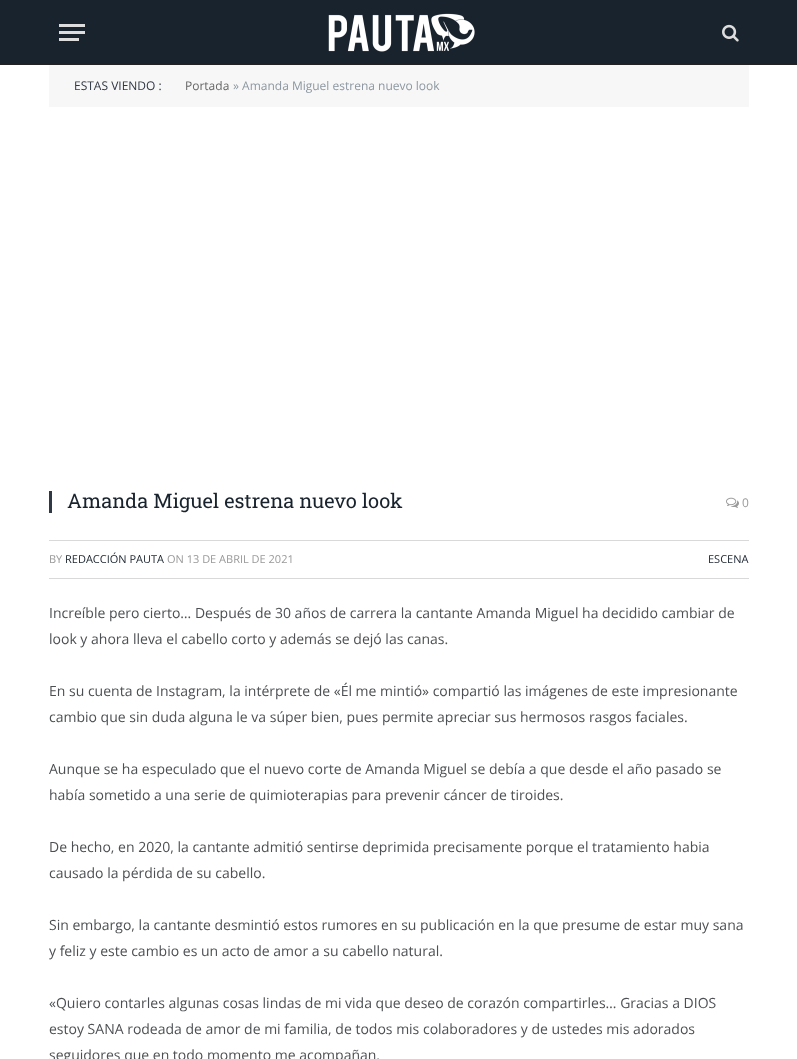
<svg xmlns="http://www.w3.org/2000/svg" width="797" height="1059">
<style>
.a{font:12px Open Sans;fill:#303745}
.b{font:12px Open Sans;fill:#666}
.c{font:12px Open Sans;fill:#8d97a1}
.d{font:20px Roboto Slab;fill:#19232d}
.e{font:12px Open Sans;fill:#999}
.f{font:11px Open Sans;fill:#999}
.g{font:11px Open Sans;fill:#19232d}
.h{font:14px Open Sans;fill:#4d5053}
</style>
<rect width="100%" height="100%" fill="#fff"/>
<path fill="#19232d" d="M0 0h797v64H0z"/>
<path fill="#222" d="M0 64h797v1H0z"/>
<path fill="#ddd" d="M59 38h20v3H59z"/>
<path fill="#ddd" d="M59 24h26v3H59z"/>
<path fill="#ddd" d="M59 31h26v3H59z"/>
<image href="1.png" x="328" y="13" width="147" height="39"/>
<image href="2.png" x="722" y="24" width="17" height="18"/>
<path fill="#f7f7f7" d="M49 65h700v42H49z"/>
<path fill="#303745" d="M49 491h3v22H49z"/>
<image href="3.png" x="726" y="497" width="13" height="11"/>
<path fill="#d9d9d9" d="M49 540h700v1H49z"/>
<path fill="#d9d9d9" d="M49 578h700v1H49z"/>
<text class="a" x="74" y="90">ESTAS VIENDO :</text>
<text class="b" x="185" y="90">Portada</text>
<text class="c" x="233" y="90">» Amanda Miguel estrena nuevo look</text>
<text class="d" x="67" y="508">Amanda Miguel estrena nuevo look</text>
<text class="e" x="742" y="507">0</text>
<text class="f" x="49" y="563">BY</text>
<text class="g" x="65" y="563">REDACCIÓN PAUTA</text>
<text class="f" x="167" y="563">ON 13 DE ABRIL DE 2021</text>
<text class="g" x="708" y="563">ESCENA</text>
<text class="h" x="49" y="618">Increíble pero cierto… Después de 30 años de carrera la cantante Amanda Miguel ha decidido cambiar de</text>
<text class="h" x="49" y="644">look y ahora lleva el cabello corto y además se dejó las canas.</text>
<text class="h" x="49" y="696">En su cuenta de Instagram, la intérprete de «Él me mintió» compartió las imágenes de este impresionante</text>
<text class="h" x="49" y="722">cambio que sin duda alguna le va súper bien, pues permite apreciar sus hermosos rasgos faciales.</text>
<text class="h" x="49" y="774">Aunque se ha especulado que el nuevo corte de Amanda Miguel se debía a que desde el año pasado se</text>
<text class="h" x="49" y="800">había sometido a una serie de quimioterapias para prevenir cáncer de tiroides.</text>
<text class="h" x="49" y="852">De hecho, en 2020, la cantante admitió sentirse deprimida precisamente porque el tratamiento habia</text>
<text class="h" x="49" y="878">causado la pérdida de su cabello.</text>
<text class="h" x="49" y="930">Sin embargo, la cantante desmintió estos rumores en su publicación en la que presume de estar muy sana</text>
<text class="h" x="49" y="956">y feliz y este cambio es un acto de amor a su cabello natural.</text>
<text class="h" x="49" y="1008">«Quiero contarles algunas cosas lindas de mi vida que deseo de corazón compartirles… Gracias a DIOS</text>
<text class="h" x="49" y="1034">estoy SANA rodeada de amor de mi familia, de todos mis colaboradores y de ustedes mis adorados</text>
<text class="h" x="49" y="1060">seguidores que en todo momento me acompañan.</text>
</svg>
